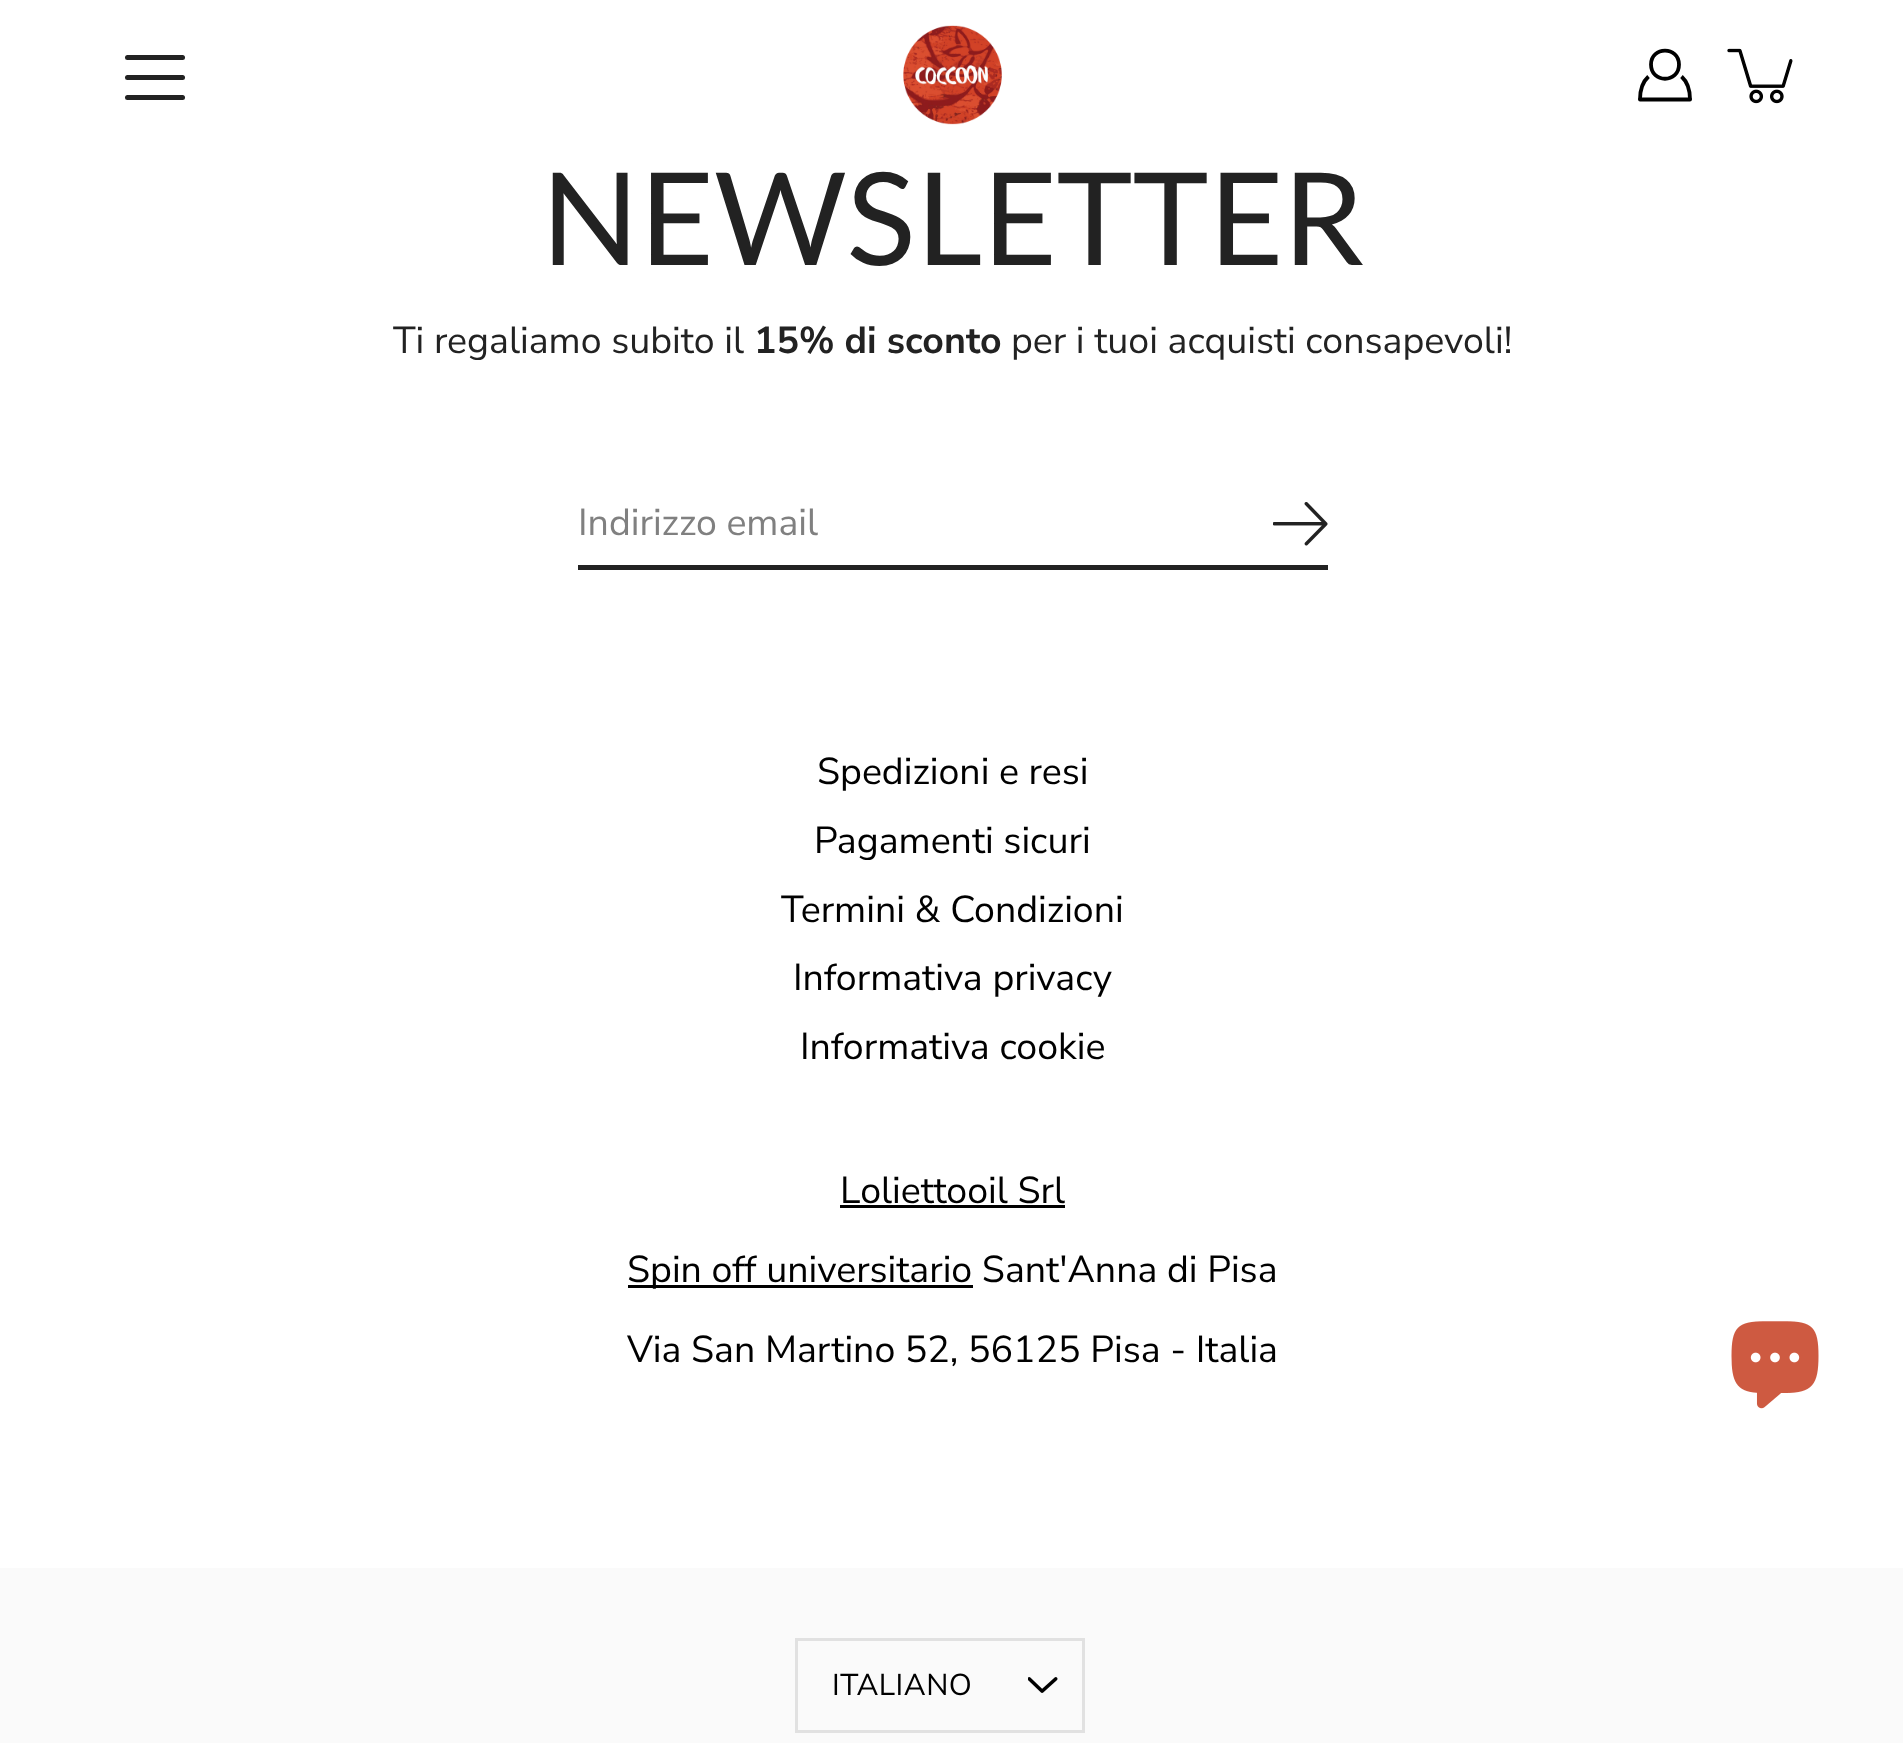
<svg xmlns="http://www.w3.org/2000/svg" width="1903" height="1743">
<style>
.a{font:128.75px Lato;fill:#222}
.b{font:37.5px Nunito Sans;fill:#222}
.c{font:bold 37.5px Nunito Sans;fill:#222}
.d{font:37.5px Nunito Sans;fill:#808080}
.e{font:37.5px Nunito Sans;fill:#000}
.f{font:30px Nunito Sans;letter-spacing:0.5px;fill:#000}
</style>
<rect width="100%" height="100%" fill="#fff"/>
<image href="1.png" x="903" y="25" width="99" height="100"/>
<rect fill="#222" x="125" y="75" width="60" height="5" rx="2.5"/>
<rect fill="#222" x="125" y="55" width="60" height="5" rx="2.5"/>
<rect fill="#222" x="125" y="95" width="60" height="5" rx="2.5"/>
<path fill="none" stroke="#000" stroke-width="3.8" d="M1679 64.5c0 19-28 19-28 0c0-18.5 28-18.5 28 0z"/>
<path fill="none" stroke="#000" stroke-width="3.8" stroke-linejoin="round" d="M1648.5 76.5c-5.5 5-8.5 13-8.5 23m41.5-23c5.5 5 8.5 13 8.5 23"/>
<path fill="none" stroke="#000" stroke-width="3.8" stroke-linecap="round" stroke-linejoin="round" d="M1640 99.5h50"/>
<image href="2.png" x="1727" y="48" width="66" height="56"/>
<path fill="#222" d="M578 565h750v5H578z"/>
<image href="3.png" x="1273" y="502" width="55" height="44"/>
<path fill="#000" d="M840 1205h225v3H840z"/>
<path fill="#000" d="M628 1285h345v3H628z"/>
<path fill="#fafafa" d="M0 1568h1903v175H0z"/>
<path fill="none" stroke="#e1e1e1" stroke-width="3" d="M796.5 1639.5h287v92H796.5z"/>
<image href="4.png" x="1028" y="1677" width="30" height="16"/>
<image href="5.png" x="1731" y="1321" width="88" height="88"/>
<text class="a" x="541" y="265">NEWSLETTER</text>
<text class="b" x="393" y="353">Ti regaliamo subito il</text>
<text class="c" x="754" y="353">15% di sconto</text>
<text class="b" x="1011" y="353">per i tuoi acquisti consapevoli!</text>
<text class="d" x="578" y="535">Indirizzo email</text>
<text class="e" x="817" y="784">Spedizioni e resi</text>
<text class="e" x="814" y="853">Pagamenti sicuri</text>
<text class="e" x="781" y="922">Termini &amp; Condizioni</text>
<text class="e" x="793" y="990">Informativa privacy</text>
<text class="e" x="800" y="1059">Informativa cookie</text>
<text class="e" x="840" y="1203">Loliettooil Srl</text>
<text class="e" x="627" y="1282">Spin off universitario Sant'Anna di Pisa</text>
<text class="e" x="627" y="1362">Via San Martino 52, 56125 Pisa - Italia</text>
<text class="f" x="832" y="1695">ITALIANO</text>
</svg>
